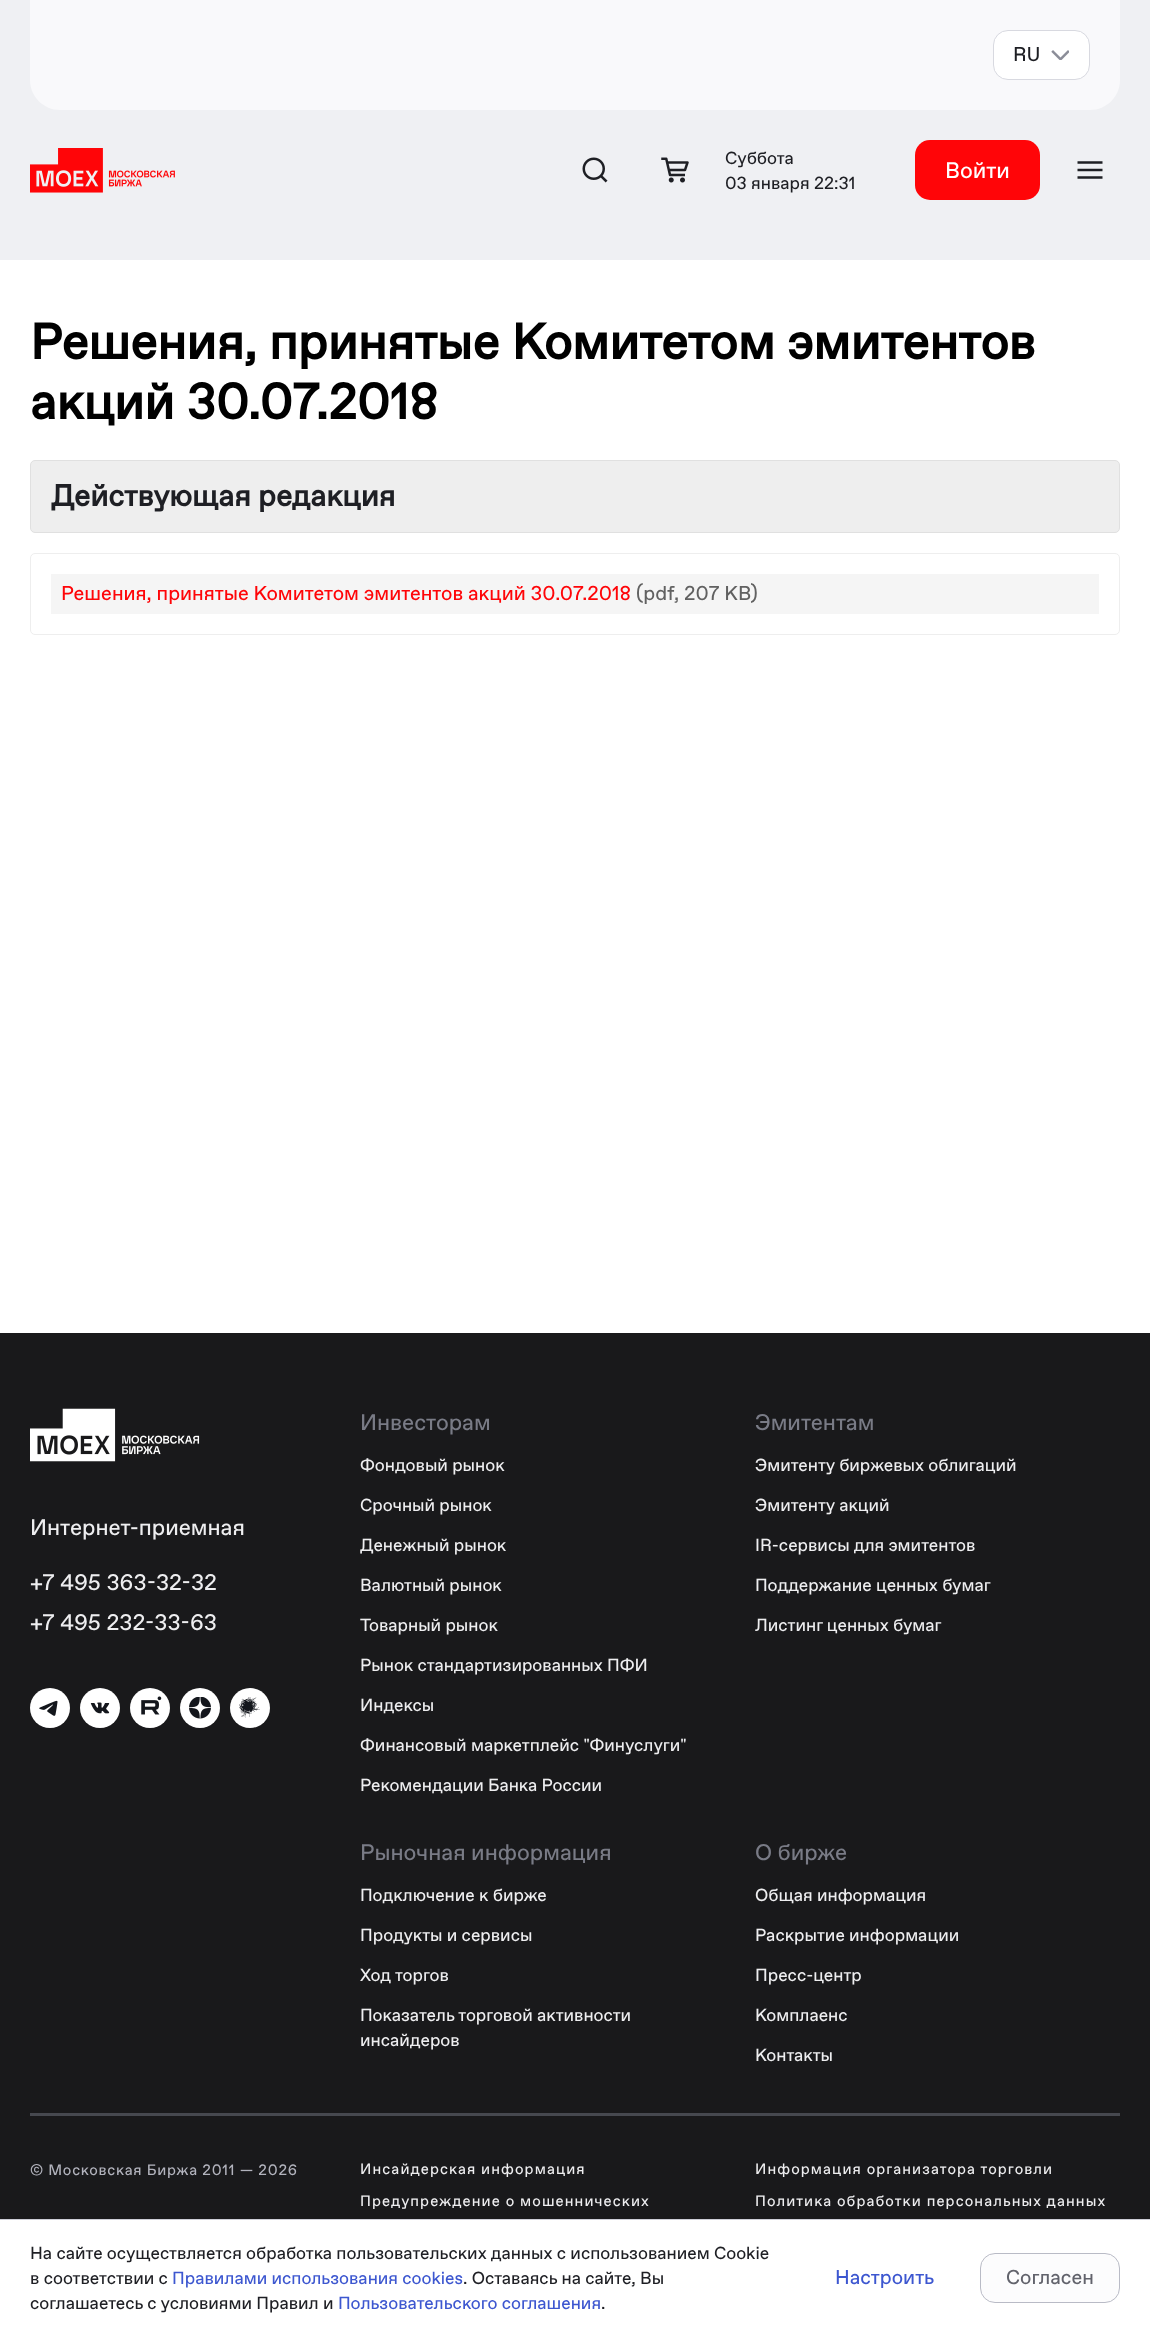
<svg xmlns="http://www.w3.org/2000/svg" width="1150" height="2334">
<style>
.a{font:20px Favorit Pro;fill:#1e1f24}
.b{font:17.5px Favorit Pro;fill:#1e1f24}
.c{font:22.5px Favorit Pro;fill:#fff}
.d{font:bold 50px Favorit Pro;fill:#000}
.e{font:bold 30px Favorit Pro;fill:#1e1f24}
.f{font:20px Favorit Pro;fill:#ff0508}
.g{font:20px Favorit Pro;fill:#616161}
.h{font:22.5px Favorit Pro;fill:#eeeef0}
.i{font:22.5px Favorit Pro;fill:#797b86}
.j{font:17.5px Favorit Pro;fill:#eeeef0}
.k{font:15px Favorit Pro;letter-spacing:0.75px;fill:#b2b3bd}
.l{font:15px Favorit Pro;letter-spacing:1.1px;fill:#eeeef0}
.m{font:17.5px Favorit Pro;fill:#3d57d0}
.n{font:20px Favorit Pro;fill:#3d57d0}
.o{font:20px Favorit Pro;fill:#62636c}
</style>
<rect width="100%" height="100%" fill="#fff"/>
<path fill="#eff0f3" d="M0 0h1150v260H0z"/>
<path fill="#f9f9fb" d="M30 0h1090v80c0 16.5-13.5 30-30 30h-1030c-16.5 0-30-13.5-30-30z"/>
<rect fill="#fff" stroke="#d8d9e0" x="993.5" y="30.5" width="96" height="49" rx="14.5"/>
<image href="1.png" x="1051" y="50" width="18" height="10"/>
<image href="2.png" x="30" y="148" width="145" height="45"/>
<image href="3.png" x="582" y="157" width="26" height="26"/>
<image href="4.png" x="661" y="157" width="28" height="26"/>
<rect fill="#ff0508" x="915" y="140" width="125" height="60" rx="15"/>
<image href="5.png" x="1077" y="161" width="26" height="18"/>
<rect fill="#eee" stroke="#e0e0e0" x="30.5" y="460.5" width="1089" height="72" rx="4.5"/>
<rect fill="none" stroke="#eee" x="30.5" y="553.5" width="1089" height="81" rx="4.5"/>
<path fill="#f5f5f5" d="M51 574h1048v40H51z"/>
<path fill="#19191b" d="M0 1333h1150v886H0z"/>
<image href="6.png" x="30" y="1408" width="170" height="54"/>
<circle fill="#fff" cx="50" cy="1708" r="20"/>
<image href="7.png" x="39" y="1700" width="19" height="16"/>
<circle fill="#fff" cx="100" cy="1708" r="20"/>
<image href="8.png" x="90" y="1702" width="20" height="12"/>
<circle fill="#fff" cx="150" cy="1708" r="20"/>
<image href="9.png" x="141" y="1696" width="21" height="19"/>
<circle fill="#fff" cx="200" cy="1708" r="20"/>
<image href="10.png" x="189" y="1697" width="22" height="22"/>
<circle fill="#fff" cx="250" cy="1708" r="20"/>
<image href="11.png" x="239" y="1697" width="21" height="21"/>
<path fill="#46484f" d="M30 2113h1090v3H30z"/>
<path fill="#cdced7" d="M0 2219h1150v1H0z"/>
<rect fill="#fcfcfd" stroke="#b9bbc6" x="980.5" y="2253.5" width="139" height="49" rx="14.5"/>
<text class="a" x="1013" y="61">RU</text>
<text class="b" x="725" y="164">Суббота</text>
<text class="b" x="725" y="189">03 января 22:31</text>
<text class="c" x="945" y="178">Войти</text>
<text class="d" x="30" y="359">Решения, принятые Комитетом эмитентов</text>
<text class="d" x="30" y="419">акций 30.07.2018</text>
<text class="e" x="51" y="506">Действующая редакция</text>
<text class="f" x="61" y="600">Решения, принятые Комитетом эмитентов акций 30.07.2018</text>
<text class="g" x="636" y="600">(pdf, 207 KB)</text>
<text class="h" x="30" y="1535">Интернет-приемная</text>
<text class="h" x="30" y="1590">+7 495 363-32-32</text>
<text class="h" x="30" y="1630">+7 495 232-33-63</text>
<text class="i" x="360" y="1430">Инвесторам</text>
<text class="j" x="360" y="1471">Фондовый рынок</text>
<text class="j" x="360" y="1511">Срочный рынок</text>
<text class="j" x="360" y="1551">Денежный рынок</text>
<text class="j" x="360" y="1591">Валютный рынок</text>
<text class="j" x="360" y="1631">Товарный рынок</text>
<text class="j" x="360" y="1671">Рынок стандартизированных ПФИ</text>
<text class="j" x="360" y="1711">Индексы</text>
<text class="j" x="360" y="1751">Финансовый маркетплейс "Финуслуги"</text>
<text class="j" x="360" y="1791">Рекомендации Банка России</text>
<text class="i" x="755" y="1430">Эмитентам</text>
<text class="j" x="755" y="1471">Эмитенту биржевых облигаций</text>
<text class="j" x="755" y="1511">Эмитенту акций</text>
<text class="j" x="755" y="1551">IR-сервисы для эмитентов</text>
<text class="j" x="755" y="1591">Поддержание ценных бумаг</text>
<text class="j" x="755" y="1631">Листинг ценных бумаг</text>
<text class="i" x="360" y="1860">Рыночная информация</text>
<text class="j" x="360" y="1901">Подключение к бирже</text>
<text class="j" x="360" y="1941">Продукты и сервисы</text>
<text class="j" x="360" y="1981">Ход торгов</text>
<text class="j" x="360" y="2021">Показатель торговой активности</text>
<text class="j" x="360" y="2046">инсайдеров</text>
<text class="i" x="755" y="1860">О бирже</text>
<text class="j" x="755" y="1901">Общая информация</text>
<text class="j" x="755" y="1941">Раскрытие информации</text>
<text class="j" x="755" y="1981">Пресс-центр</text>
<text class="j" x="755" y="2021">Комплаенс</text>
<text class="j" x="755" y="2061">Контакты</text>
<text class="k" x="30" y="2175">© Московская Биржа 2011 — 2026</text>
<text class="l" x="360" y="2174">Инсайдерская информация</text>
<text class="l" x="755" y="2174">Информация организатора торговли</text>
<text class="l" x="360" y="2206">Предупреждение о мошеннических</text>
<text class="l" x="755" y="2206">Политика обработки персональных данных</text>
<text class="b" x="30" y="2259">На сайте осуществляется обработка пользовательских данных с использованием Cookie</text>
<text class="b" x="30" y="2284">в соответствии с</text>
<text class="m" x="172" y="2284">Правилами использования cookies</text>
<text class="b" x="463" y="2284">. Оставаясь на сайте, Вы</text>
<text class="b" x="30" y="2309">соглашаетесь с условиями Правил и</text>
<text class="m" x="338" y="2309">Пользовательского соглашения</text>
<text class="b" x="601" y="2309">.</text>
<text class="n" x="835" y="2284">Настроить</text>
<text class="o" x="1006" y="2284">Согласен</text>
</svg>
